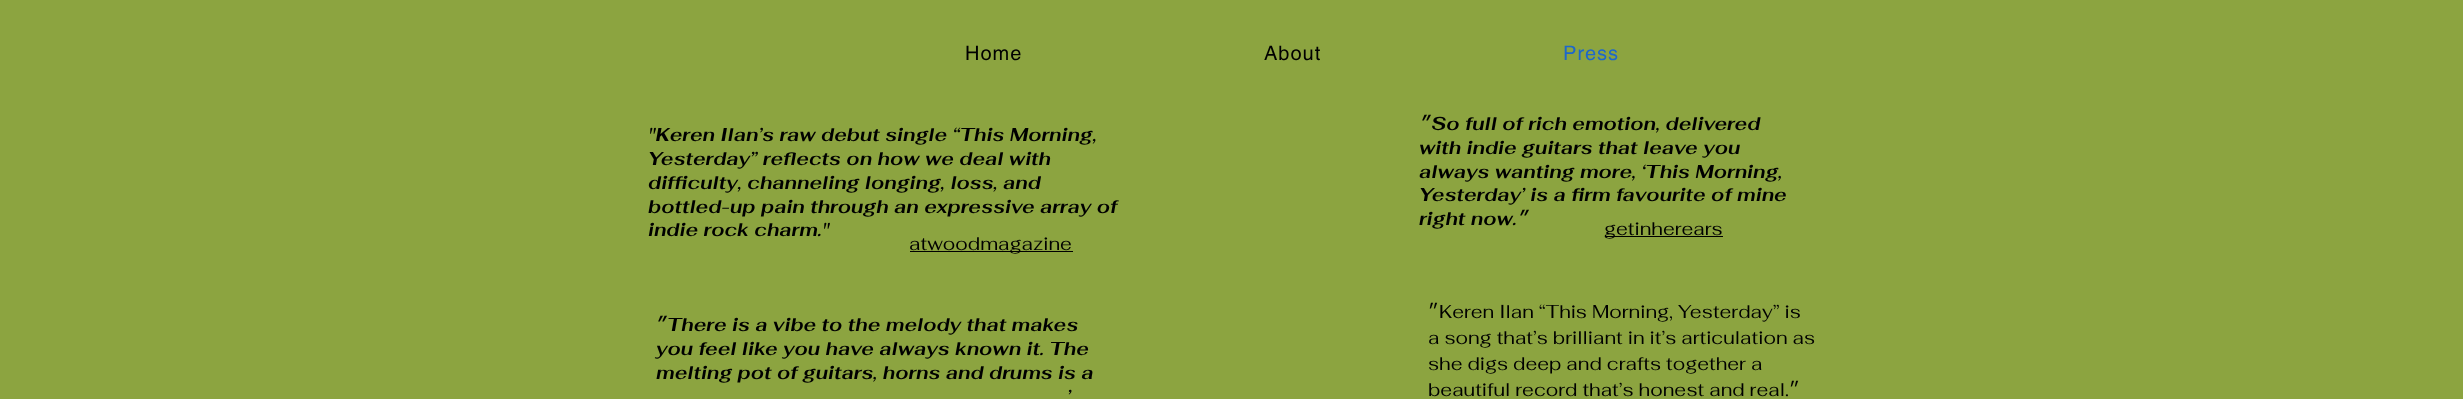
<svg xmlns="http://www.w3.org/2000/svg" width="2463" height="399">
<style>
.a{font:20px helvetica;letter-spacing:1px;fill:#000}
.b{font:20px helvetica;letter-spacing:1px;fill:#1d67cd}
.c{font:italic bold 18.75px Fahkwang;fill:#000}
.d{font:italic bold 18.75px Liberation Sans;direction:rtl;fill:#000}
.e{font:18.75px Fahkwang;fill:#000}
.f{font:18.75px Liberation Sans;direction:rtl;fill:#000}
</style>
<rect width="100%" height="100%" fill="#8ca440"/>
<path fill="#000" d="M1605 236h118v1H1605z"/>
<path fill="#000" d="M910 251h163v1H910z"/>
<text class="a" x="965" y="60">Home</text>
<text class="a" x="1264" y="60">About</text>
<text class="b" x="1563" y="60">Press</text>
<text class="c" x="648" y="141">"Keren Ilan’s raw debut single “This Morning,</text>
<text class="c" x="648" y="165">Yesterday” reflects on how we deal with</text>
<text class="c" x="648" y="189">difficulty, channeling longing, loss, and</text>
<text class="c" x="648" y="213">bottled-up pain through an expressive array of</text>
<text class="c" x="648" y="236">indie rock charm."</text>
<text class="d" x="1431" y="130">״</text>
<text class="c" x="1431" y="130">So full of rich emotion, delivered</text>
<text class="c" x="1419" y="154">with indie guitars that leave you</text>
<text class="c" x="1419" y="178">always wanting more, ‘This Morning,</text>
<text class="c" x="1419" y="201">Yesterday’ is a firm favourite of mine</text>
<text class="c" x="1419" y="225">right now.</text>
<text class="d" x="1529" y="225">״</text>
<text class="e" x="1604" y="235">getinherears</text>
<text class="e" x="909" y="250">atwoodmagazine</text>
<text class="d" x="667" y="331">״</text>
<text class="c" x="667" y="331">There is a vibe to the melody that makes</text>
<text class="c" x="656" y="355">you feel like you have always known it. The</text>
<text class="c" x="656" y="379">melting pot of guitars, horns and drums is a</text>
<text class="c" x="1067" y="403">’</text>
<text class="f" x="1439" y="318">״</text>
<text class="e" x="1439" y="318">Keren Ilan “This Morning, Yesterday” is</text>
<text class="e" x="1428" y="344">a song that’s brilliant in it’s articulation as</text>
<text class="e" x="1428" y="370">she digs deep and crafts together a</text>
<text class="e" x="1428" y="396">beautiful record that’s honest and real.</text>
<text class="f" x="1800" y="396">״</text>
</svg>
